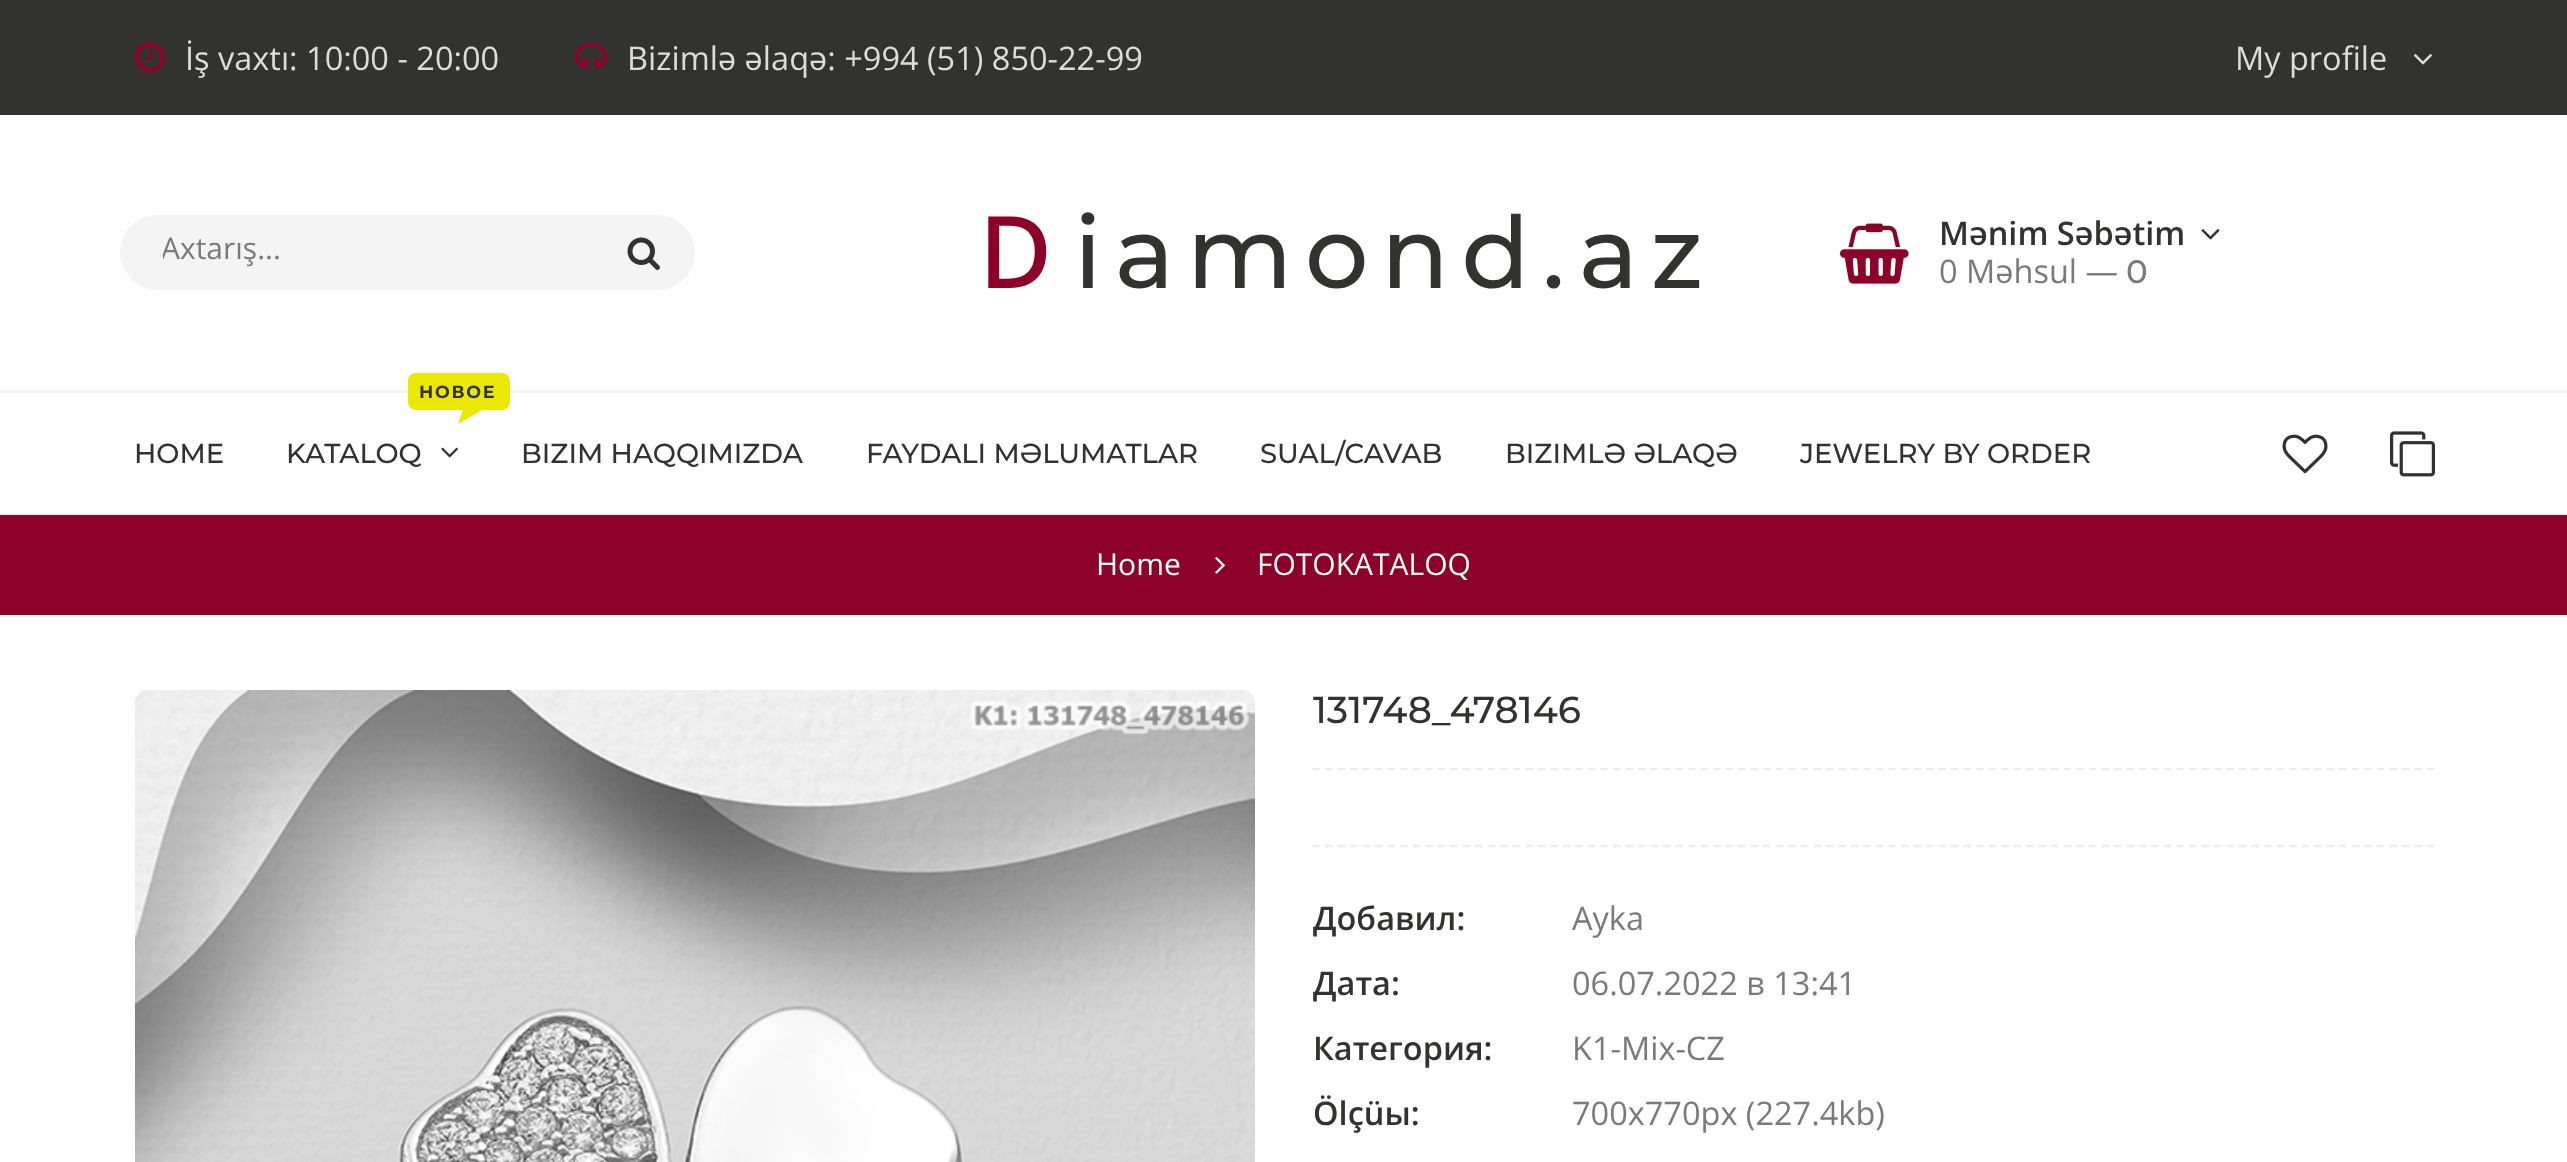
<svg xmlns="http://www.w3.org/2000/svg" width="2567" height="1162">
<style>
.a{font:32.5px Open Sans;fill:#dcdcdc}
.b{font:30px Open Sans;fill:#7a7a7a}
.c{font:500 100px Noto Sans;letter-spacing:12.5px;fill:#8d0229}
.d{font:500 100px Montserrat;letter-spacing:12.5px;fill:#323331}
.e{font:600 32.5px Open Sans;fill:#323331}
.f{font:32.5px Open Sans;fill:#7a7a7a}
.g{font:500 32.5px Montserrat;fill:#7a7a7a}
.h{font:500 27.5px Montserrat;fill:#323331}
.i{font:bold 17.5px Montserrat;letter-spacing:1.75px;fill:#323331}
.j{font:30px Open Sans;fill:#fff}
.k{font:500 37.5px Montserrat;fill:#323331}
</style>
<defs>
<clipPath id="clip1"><path d="M163 228h420v42H163z"/></clipPath>
</defs>
<rect width="100%" height="100%" fill="#fff"/>
<path fill="#323331" d="M0 0h2567v115H0z"/>
<image href="1.png" x="135" y="42" width="30" height="31"/>
<image href="2.png" x="575" y="42" width="33" height="28"/>
<image href="3.png" x="2413" y="54" width="19" height="11"/>
<rect fill="#f4f4f4" x="120" y="215" width="575" height="75" rx="37.5"/>
<image href="4.png" x="627" y="237" width="33" height="33"/>
<image href="5.png" x="1840" y="223" width="69" height="61"/>
<image href="6.png" x="2201" y="229" width="19" height="11"/>
<path fill="#f4f4f4" d="M0 390h2567v3H0z"/>
<path fill="#f4f4f4" d="M0 513h2567v2H0z"/>
<path fill="#ebe806" d="M500 381l-9 24l-33 19l8-24z"/>
<rect fill="#ebe806" x="408" y="373" width="102" height="37" rx="8"/>
<image href="7.png" x="441" y="447" width="17" height="11"/>
<image href="8.png" x="2282" y="434" width="46" height="40"/>
<image href="9.png" x="2390" y="431" width="45" height="46"/>
<path fill="#8d0229" d="M0 515h2567v100H0z"/>
<image href="10.png" x="1215" y="557" width="10" height="17"/>
<image href="11.png" x="135" y="690" width="1120" height="472"/>
<path fill="none" stroke="#ededed" stroke-width="2.5" stroke-dasharray="7.5 5.02" d="M1312.5 769h1122.5"/>
<path fill="none" stroke="#ededed" stroke-width="2.5" stroke-dasharray="7.5 5.02" d="M1312.5 846h1122.5"/>
<text class="a" x="185" y="70">İş vaxtı: 10:00 - 20:00</text>
<text class="a" x="627" y="70">Bizimlə əlaqə: +994 (51) 850-22-99</text>
<text class="a" x="2235" y="70">My profile</text>
<g clip-path="url(#clip1)">
<text class="b" x="161" y="259">Axtarış...</text>
</g>
<text class="c" x="979" y="288">D</text>
<text class="d" x="1074" y="288">iamond.az</text>
<text class="e" x="1939" y="245">Mənim Səbətim</text>
<text class="f" x="1939" y="283">0 Məhsul —</text>
<text class="g" x="2126" y="283">0</text>
<text class="h" x="134" y="463">HOME</text>
<text class="i" x="419" y="398">НОВОЕ</text>
<text class="h" x="286" y="463">KATALOQ</text>
<text class="h" x="521" y="463">BIZIM HAQQIMIZDA</text>
<text class="h" x="866" y="463">FAYDALI MƏLUMATLAR</text>
<text class="h" x="1260" y="463">SUAL/CAVAB</text>
<text class="h" x="1505" y="463">BIZIMLƏ ƏLAQƏ</text>
<text class="h" x="1800" y="463">JEWELRY BY ORDER</text>
<text class="j" x="1096" y="575">Home</text>
<text class="j" x="1257" y="575">FOTOKATALOQ</text>
<text class="k" x="1313" y="723">131748_478146</text>
<text class="e" x="1313" y="930">Добавил:</text>
<text class="f" x="1572" y="930">Ayka</text>
<text class="e" x="1313" y="995">Дата:</text>
<text class="f" x="1572" y="995">06.07.2022 в 13:41</text>
<text class="e" x="1313" y="1060">Категория:</text>
<text class="f" x="1572" y="1060">K1-Mix-CZ</text>
<text class="e" x="1313" y="1125">Ölçüы:</text>
<text class="f" x="1572" y="1125">700x770px (227.4kb)</text>
</svg>
